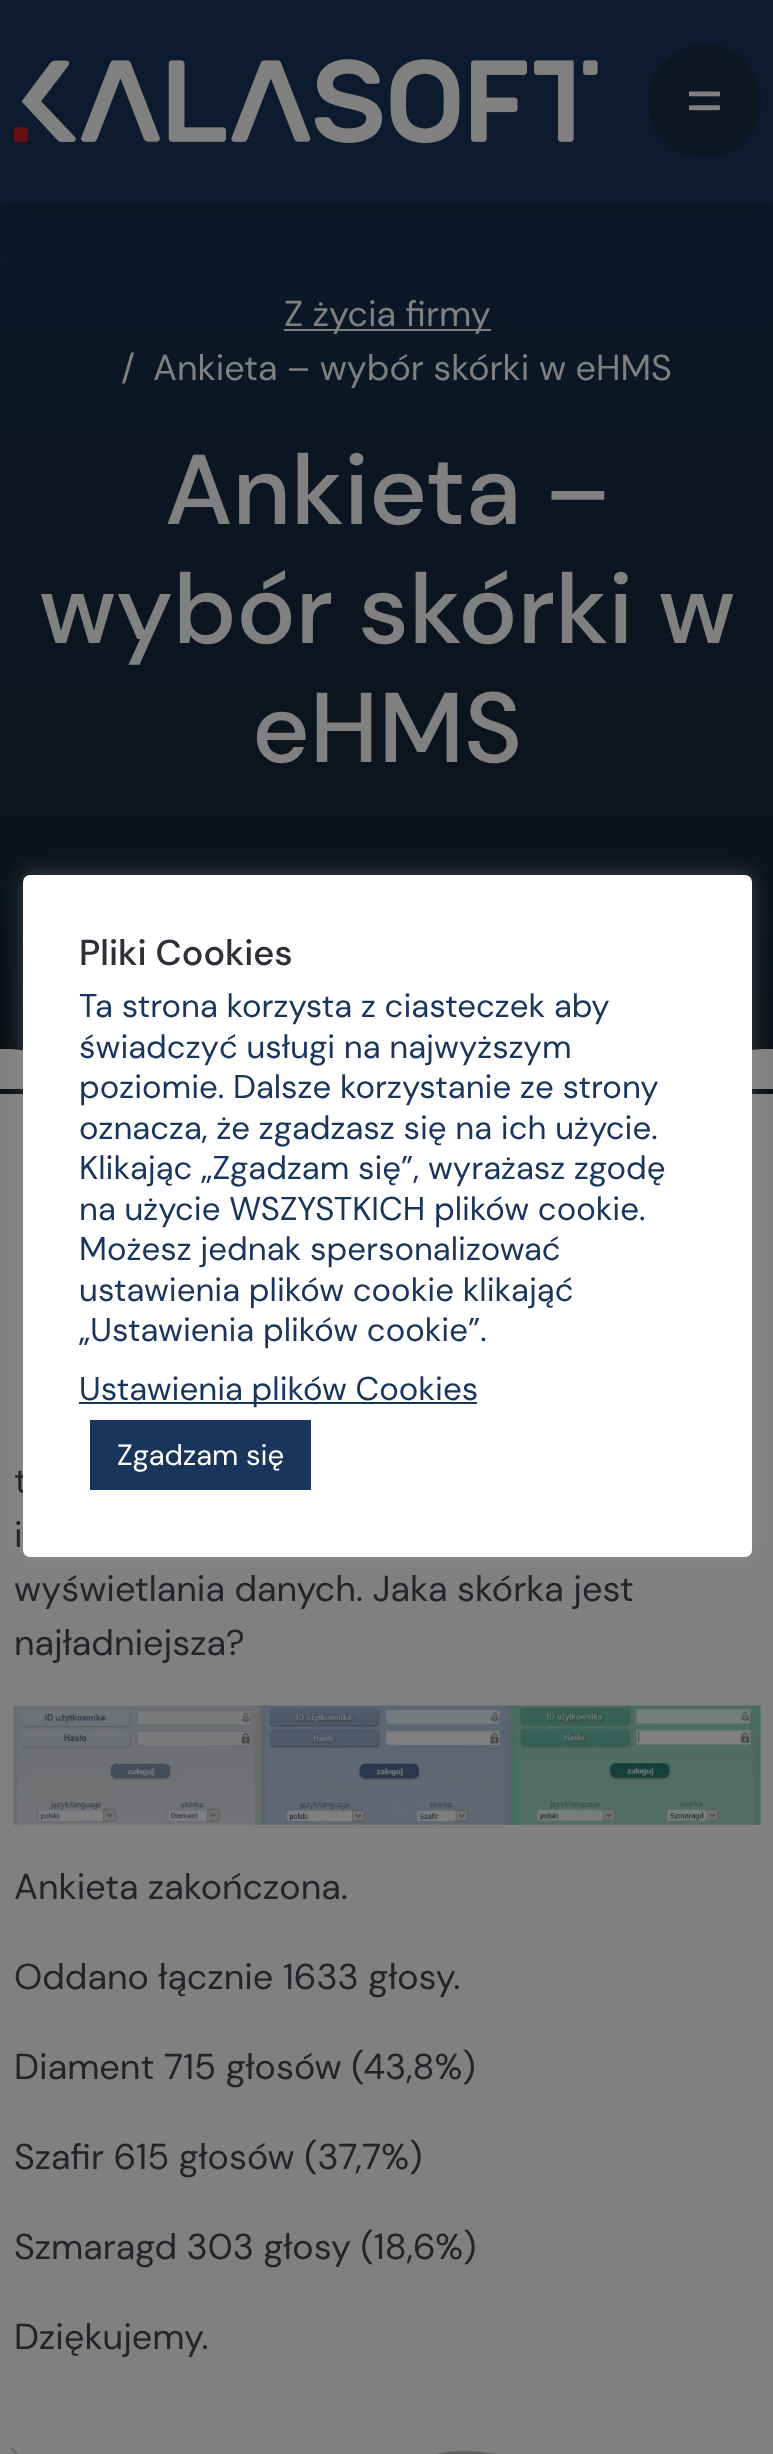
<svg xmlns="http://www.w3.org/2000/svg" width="773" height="2454">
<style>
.a{font:36px DM Sans;fill:#808080}
.b{font:500 99px DM Sans;fill:#808080}
.c{font:36px DM Sans;fill:#232429}
.d{font:500 36px DM Sans;fill:#2f3037}
.e{font:33px DM Sans;fill:#1a355b}
.f{font:29.25px DM Sans;fill:#fff}
</style>
<defs>
<linearGradient id="g1" gradientUnits="userSpaceOnUse" x1="387" y1="0" x2="387" y2="1094"><stop offset="0" stop-color="#0d1b2e"/><stop offset="1" stop-color="#0b1015"/></linearGradient>
<clipPath id="clip1"><path d="M0 1049h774v40H0z"/></clipPath>
</defs>
<rect width="100%" height="100%" fill="#808080"/>
<path fill="url(#g1)" d="M0 203h773v891H0z"/>
<path fill="#00000026" filter="blur(18px)" d="M0 18h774v203H0z"/>
<path fill="#0d1b2e" d="M0 0h773v203H0z"/>
<image href="1.png" x="14" y="59" width="584" height="84"/>
<circle fill="#0d1623" cx="704.5" cy="101.5" r="56.5"/>
<image href="2.png" x="689" y="91" width="31" height="20"/>
<path fill="#808080" d="M284 329h207v2H284z"/>
<g clip-path="url(#clip1)">
<path fill="#808080" d="M0 1048c0 0 376 38 773 0v41h-773z"/>
</g>
<image href="3.png" x="13" y="1705" width="748" height="120"/>
<image href="4.png" x="10" y="2447" width="9" height="7"/>
<path fill="#5d6167" d="M756 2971c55-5 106-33 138-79c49-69 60-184-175-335c-372-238-351-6-346 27l21 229c10 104 103 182 208 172z"/>
<rect fill="#acabab4d" filter="blur(11px)" x="23" y="873" width="729" height="682" rx="7"/>
<text class="a" x="284" y="326">Z życia firmy</text>
<text class="a" x="121" y="380">/</text>
<text class="a" x="153" y="380">Ankieta – wybór skórki w eHMS</text>
<text class="b" x="165" y="524">Ankieta –</text>
<text class="b" x="39" y="643">wybór skórki w</text>
<text class="b" x="252" y="762">eHMS</text>
<text class="c" x="14" y="1493">t</text>
<text class="c" x="14" y="1547">i</text>
<text class="c" x="14" y="1601">wyświetlania danych. Jaka skórka jest</text>
<text class="c" x="14" y="1655">najładniejsza?</text>
<text class="c" x="14" y="1899">Ankieta zakończona.</text>
<text class="c" x="14" y="1989">Oddano łącznie 1633 głosy.</text>
<text class="c" x="14" y="2079">Diament 715 głosów (43,8%)</text>
<text class="c" x="14" y="2169">Szafir 615 głosów (37,7%)</text>
<text class="c" x="14" y="2259">Szmaragd 303 głosy (18,6%)</text>
<text class="c" x="14" y="2349">Dziękujemy.</text>
<rect fill="#fff" x="23" y="875" width="729" height="682" rx="7"/>
<text class="d" x="79" y="965">Pliki Cookies</text>
<text class="e" x="79" y="1017">Ta strona korzysta z ciasteczek aby</text>
<text class="e" x="79" y="1058">świadczyć usługi na najwyższym</text>
<text class="e" x="79" y="1098">poziomie. Dalsze korzystanie ze strony</text>
<text class="e" x="79" y="1139">oznacza, że zgadzasz się na ich użycie.</text>
<text class="e" x="79" y="1179">Klikając „Zgadzam się”, wyrażasz zgodę</text>
<text class="e" x="79" y="1220">na użycie WSZYSTKICH plików cookie.</text>
<text class="e" x="79" y="1260">Możesz jednak spersonalizować</text>
<text class="e" x="79" y="1301">ustawienia plików cookie klikająć</text>
<text class="e" x="79" y="1341">„Ustawienia plików cookie”.</text>
<path fill="#1a355b" d="M79 1402h398v2H79z"/>
<text class="e" x="79" y="1400">Ustawienia plików Cookies</text>
<path fill="#1a355b" d="M90 1420h221v70H90z"/>
<text class="f" x="117" y="1465">Zgadzam się</text>
</svg>
